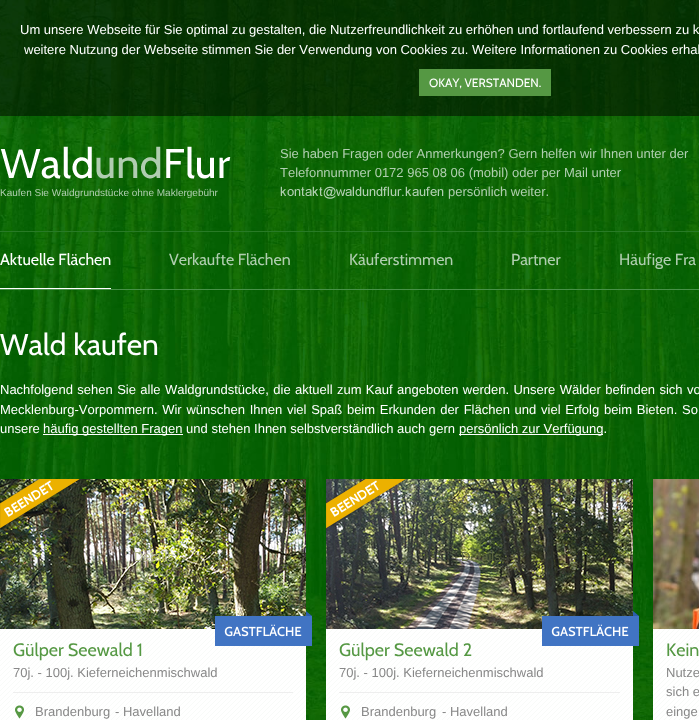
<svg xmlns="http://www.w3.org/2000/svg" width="699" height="720">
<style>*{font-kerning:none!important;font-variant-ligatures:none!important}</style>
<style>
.a{font:13px Liberation Sans;fill:#fff}
.b{font:12px Cabin;fill:#fff}
.c{font:10px Liberation Sans;fill:#b0ceb0}
.d{font:13px Liberation Sans;fill:#b0ceb0}
.e{font:16px Cabin;fill:#fff}
.f{font:16px Cabin;fill:#b0ceb0}
.g{font:30px Cabin;fill:#fff}
.h{font:13px Liberation Sans;fill:#b3b888}
.i{font:18px Cabin;fill:#559843}
.j{font:13px Liberation Sans;fill:#888}
.k{font:13px Liberation Sans;fill:#5f6842}
</style>
<rect width="100%" height="100%" fill="#fff"/>
<image href="1.png" x="0" y="0" width="699" height="720"/>
<path fill="#00000080" d="M0 0h699v116H0z"/>
<path fill="#559843" d="M419 69h132v27H419z"/>
<image href="2.png" x="0" y="146" width="231" height="33"/>
<image href="3.png" x="280" y="186" width="164" height="13"/>
<path fill="#287a26" d="M0 231h699v1H0z"/>
<path fill="#479147" d="M0 289h699v1H0z"/>
<path fill="#fff" d="M0 288h111v1H0z"/>
<path fill="#fff" d="M43 434h140v1H43z"/>
<path fill="#fff" d="M459 434h144v1H459z"/>
<image href="4.png" x="0" y="629" width="306" height="91"/>
<image href="6.png" x="0" y="479" width="306" height="150"/>
<image href="5.png" x="0" y="479" width="80" height="49"/>
<image href="7.png" x="215" y="611" width="97" height="35"/>
<path fill="#eee" d="M13 692h280v1H13z"/>
<image href="8.png" x="15" y="705" width="9" height="14"/>
<image href="9.png" x="326" y="629" width="307" height="91"/>
<image href="11.png" x="326" y="479" width="307" height="150"/>
<image href="10.png" x="326" y="479" width="80" height="49"/>
<image href="12.png" x="542" y="611" width="97" height="35"/>
<path fill="#eee" d="M339 692h281v1H339z"/>
<image href="13.png" x="341" y="705" width="9" height="14"/>
<image href="14.png" x="653" y="629" width="46" height="91"/>
<image href="15.png" x="653" y="479" width="46" height="150"/>
<text class="a" x="20" y="34">Um unsere Webseite für Sie optimal zu gestalten, die Nutzerfreundlichkeit zu erhöhen und fortlaufend verbessern zu k</text>
<text class="a" x="24" y="54">weitere Nutzung der Webseite stimmen Sie der Verwendung von Cookies zu. Weitere Informationen zu Cookies erhal</text>
<text class="b" x="429" y="87">OKAY, VERSTANDEN.</text>
<text class="c" x="0" y="196">Kaufen Sie Waldgrundstücke ohne Maklergebühr</text>
<text class="d" x="280" y="158">Sie haben Fragen oder Anmerkungen? Gern helfen wir Ihnen unter der</text>
<text class="d" x="280" y="177">Telefonnummer 0172 965 08 06 (mobil) oder per Mail unter</text>
<text class="d" x="448" y="196">persönlich weiter.</text>
<text class="e" x="0" y="265">Aktuelle Flächen</text>
<text class="f" x="169" y="265">Verkaufte Flächen</text>
<text class="f" x="349" y="265">Käuferstimmen</text>
<text class="f" x="511" y="265">Partner</text>
<text class="f" x="619" y="265">Häufige Fra</text>
<text class="g" x="0" y="355">Wald kaufen</text>
<text class="a" x="0" y="394" word-spacing="0.75">Nachfolgend sehen Sie alle Waldgrundstücke, die aktuell zum Kauf angeboten werden. Unsere Wälder befinden sich vo</text>
<text class="a" x="0" y="414" word-spacing="1.1">Mecklenburg‐Vorpommern. Wir wünschen Ihnen viel Spaß beim Erkunden der Flächen und viel Erfolg beim Bieten. So</text>
<text class="a" x="0" y="433">unsere</text>
<text class="a" x="43" y="433">häufig gestellten Fragen und stehen Ihnen selbstverständlich auch gern</text>
<text class="a" x="459" y="433">persönlich zur Verfügung.</text>
<text class="h" x="134" y="561">Details</text>
<text class="i" x="13" y="656">Gülper Seewald 1</text>
<text class="j" x="13" y="677">70j. - 100j. Kieferneichenmischwald</text>
<text class="j" x="35" y="716">Brandenburg</text>
<text class="j" x="115" y="716">- Havelland</text>
<text class="k" x="461" y="561">Details</text>
<text class="i" x="339" y="656">Gülper Seewald 2</text>
<text class="j" x="339" y="677">70j. - 100j. Kieferneichenmischwald</text>
<text class="j" x="361" y="716">Brandenburg</text>
<text class="j" x="442" y="716">- Havelland</text>
<text class="i" x="666" y="656">Kein</text>
<text class="j" x="666" y="677">Nutze</text>
<text class="j" x="666" y="696">sich e</text>
<text class="j" x="666" y="716">einge</text>
</svg>
